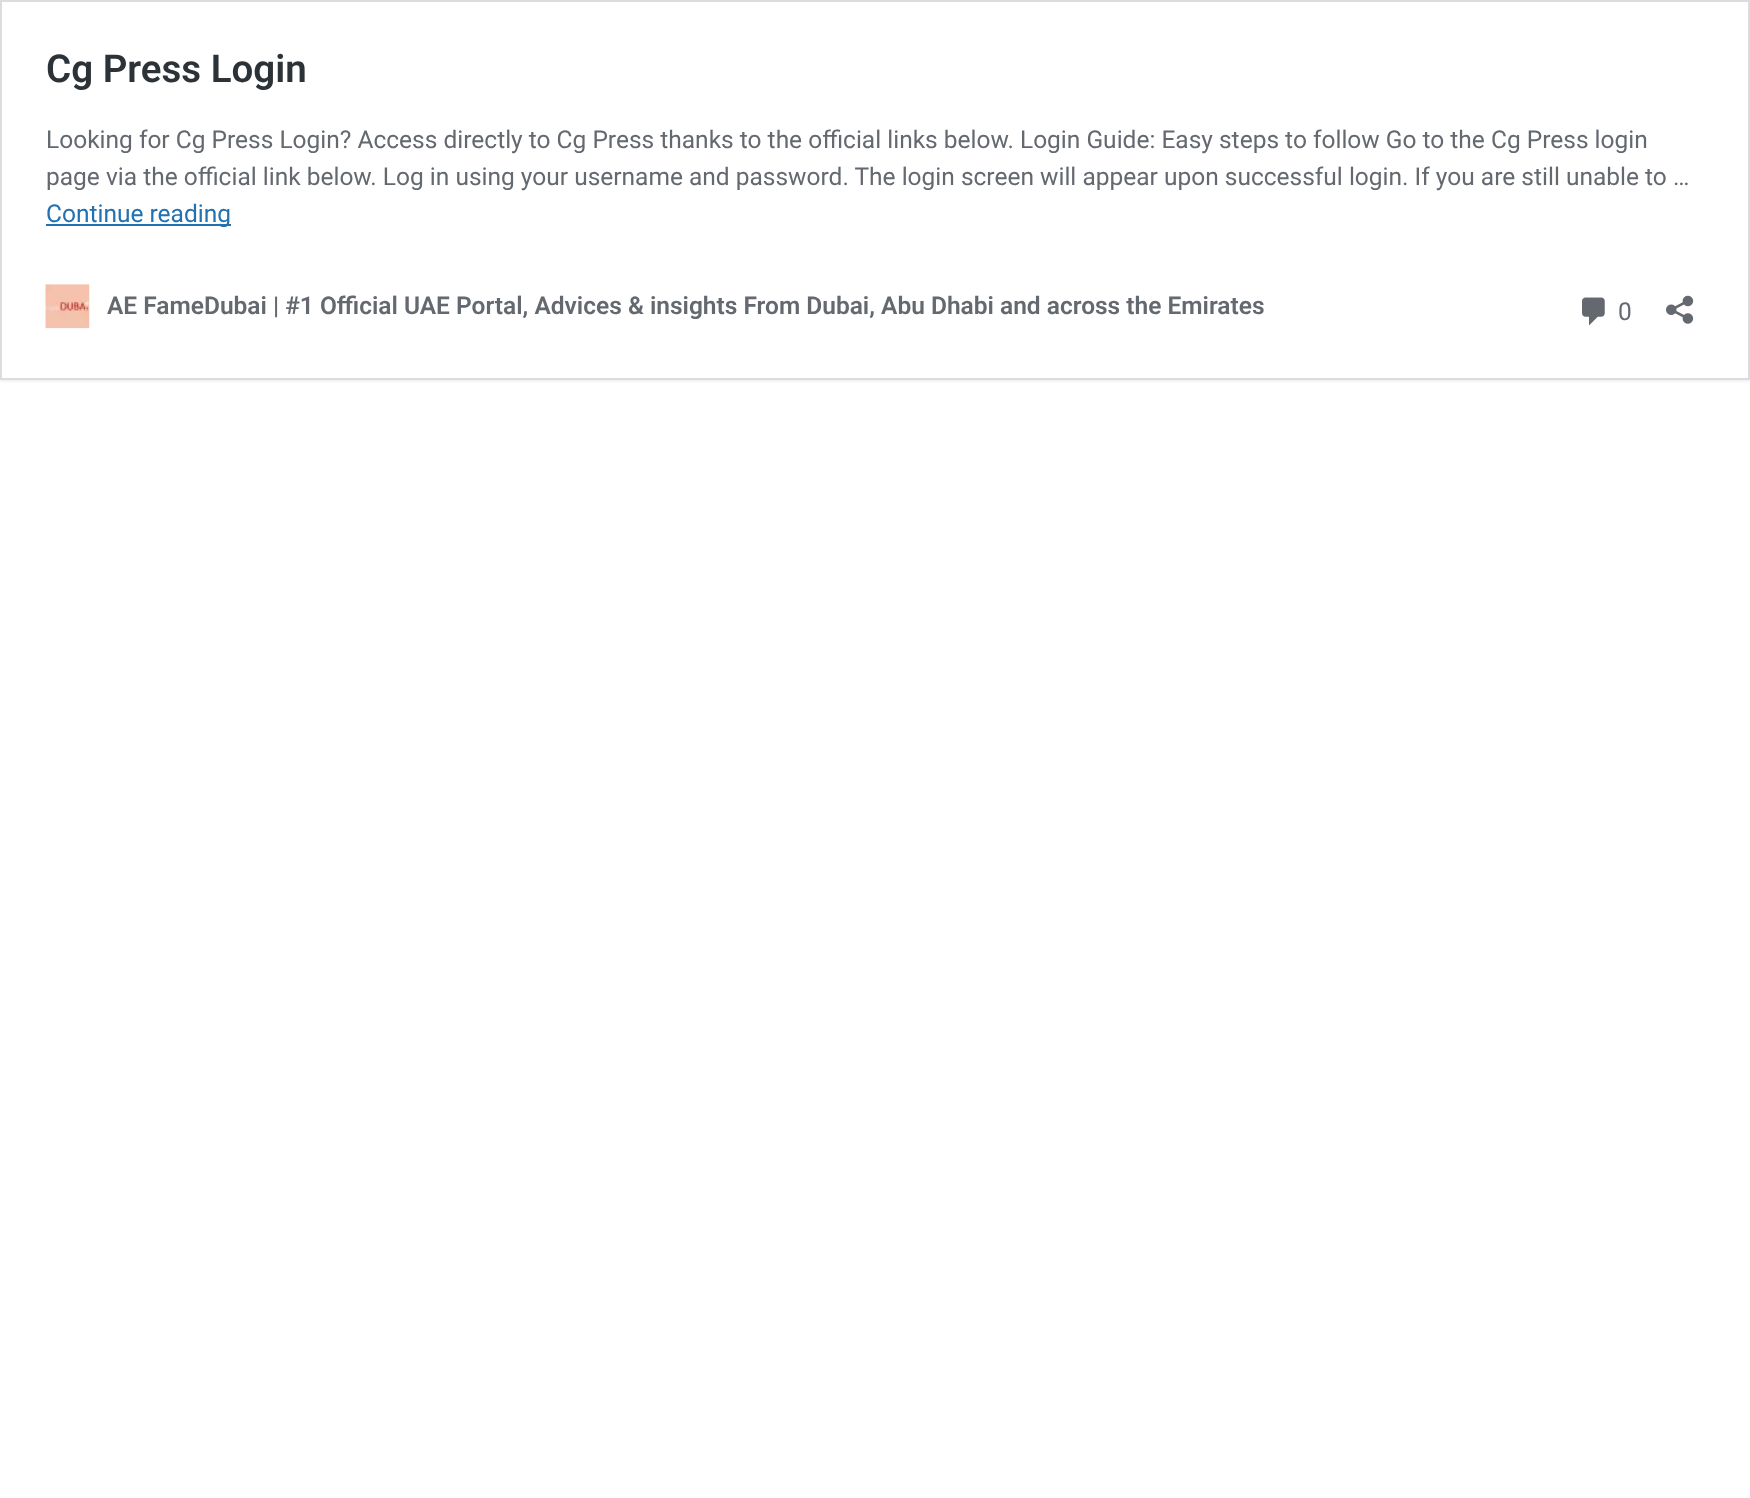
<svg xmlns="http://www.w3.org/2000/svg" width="1750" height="1498">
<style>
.a{font:600 38.5px Roboto;fill:#2c3338}
.b{font:24.5px Roboto;fill:#646970}
.c{font:24.5px Roboto;fill:#2271b1}
.d{font:600 24.5px Roboto;fill:#646970}
</style>
<rect width="100%" height="100%" fill="#fff"/>
<path fill="#0000000d" filter="blur(1px)" d="M0 2h1750v380H0z"/>
<path fill="#fff" stroke="#dcdcde" stroke-width="2" d="M1 1h1748v378H1z"/>
<path fill="#2271b1" d="M46 224h185v2H46z"/>
<image href="1.png" x="45" y="284" width="45" height="45"/>
<image href="2.png" x="1582" y="297" width="23" height="29"/>
<image href="3.png" x="1666" y="295" width="28" height="29"/>
<text class="a" x="46" y="82">Cg Press Login</text>
<text class="b" x="46" y="148">Looking for Cg Press Login? Access directly to Cg Press thanks to the official links below. Login Guide: Easy steps to follow Go to the Cg Press login</text>
<text class="b" x="46" y="185">page via the official link below. Log in using your username and password. The login screen will appear upon successful login. If you are still unable to …</text>
<text class="c" x="46" y="222">Continue reading</text>
<text class="d" x="107" y="314">AE FameDubai | #1 Official UAE Portal, Advices &amp; insights From Dubai, Abu Dhabi and across the Emirates</text>
<text class="b" x="1618" y="320">0</text>
</svg>
